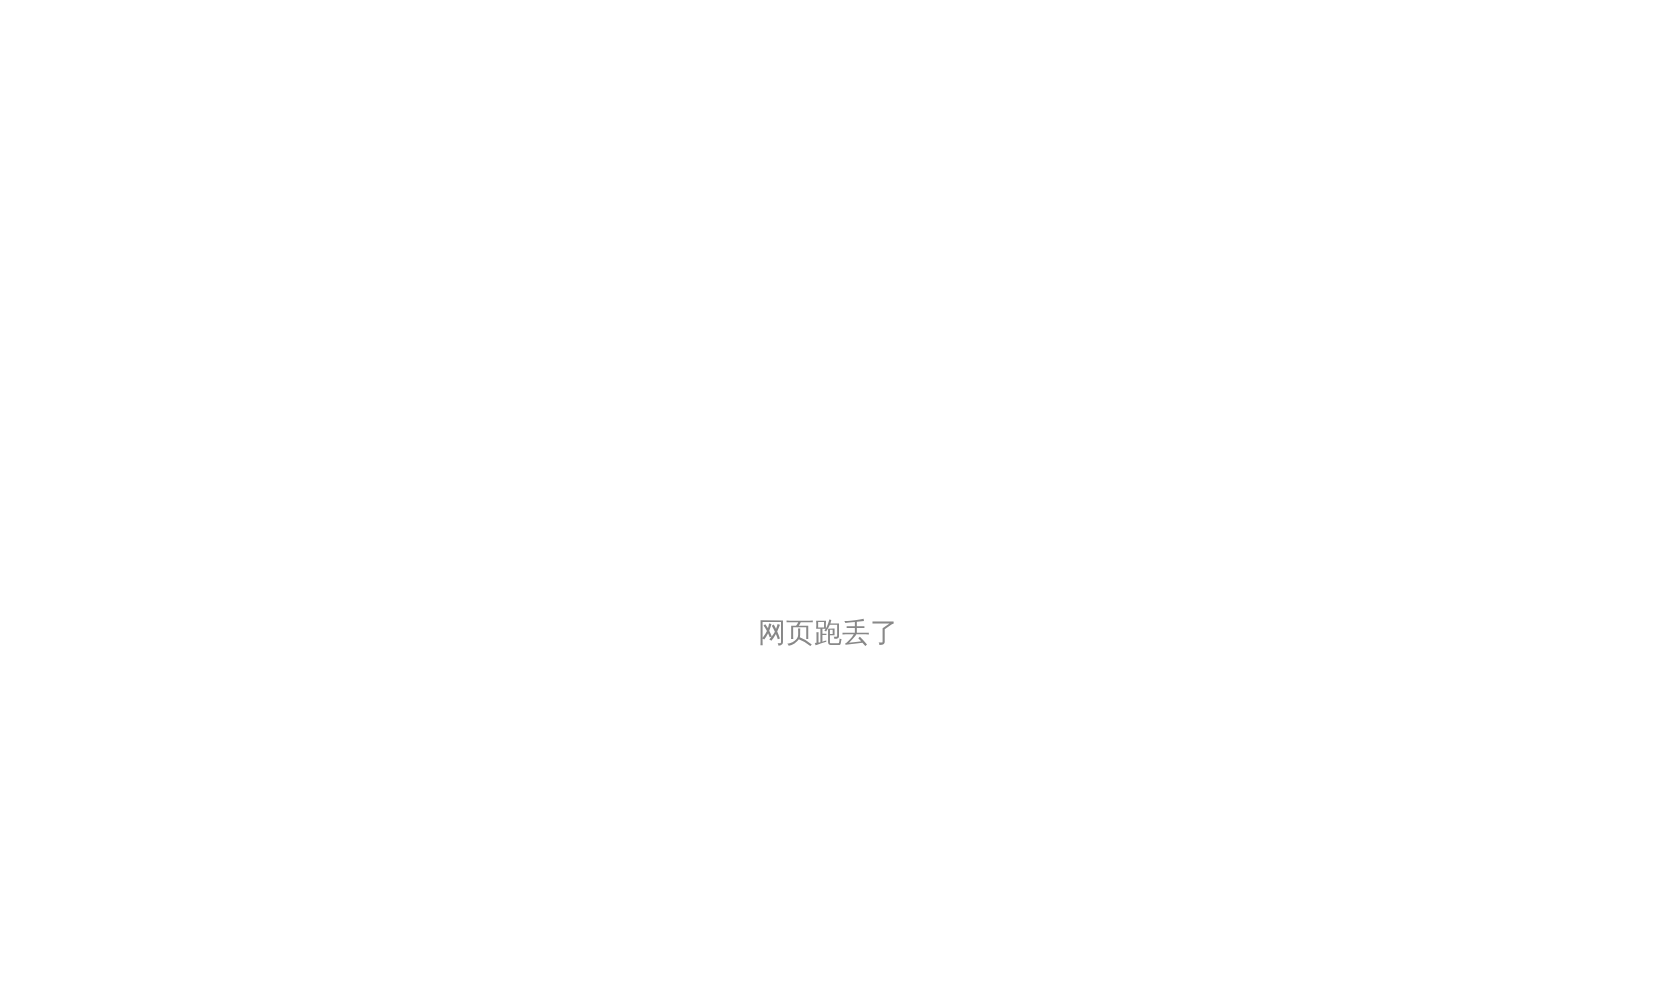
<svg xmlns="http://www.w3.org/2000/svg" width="1655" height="1006">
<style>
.a{font:500 28px WenQuanYi Zen Hei;fill:#888}
</style>
<rect width="100%" height="100%" fill="#fff"/>
<text class="a" x="758" y="642">网页跑丢了</text>
</svg>
